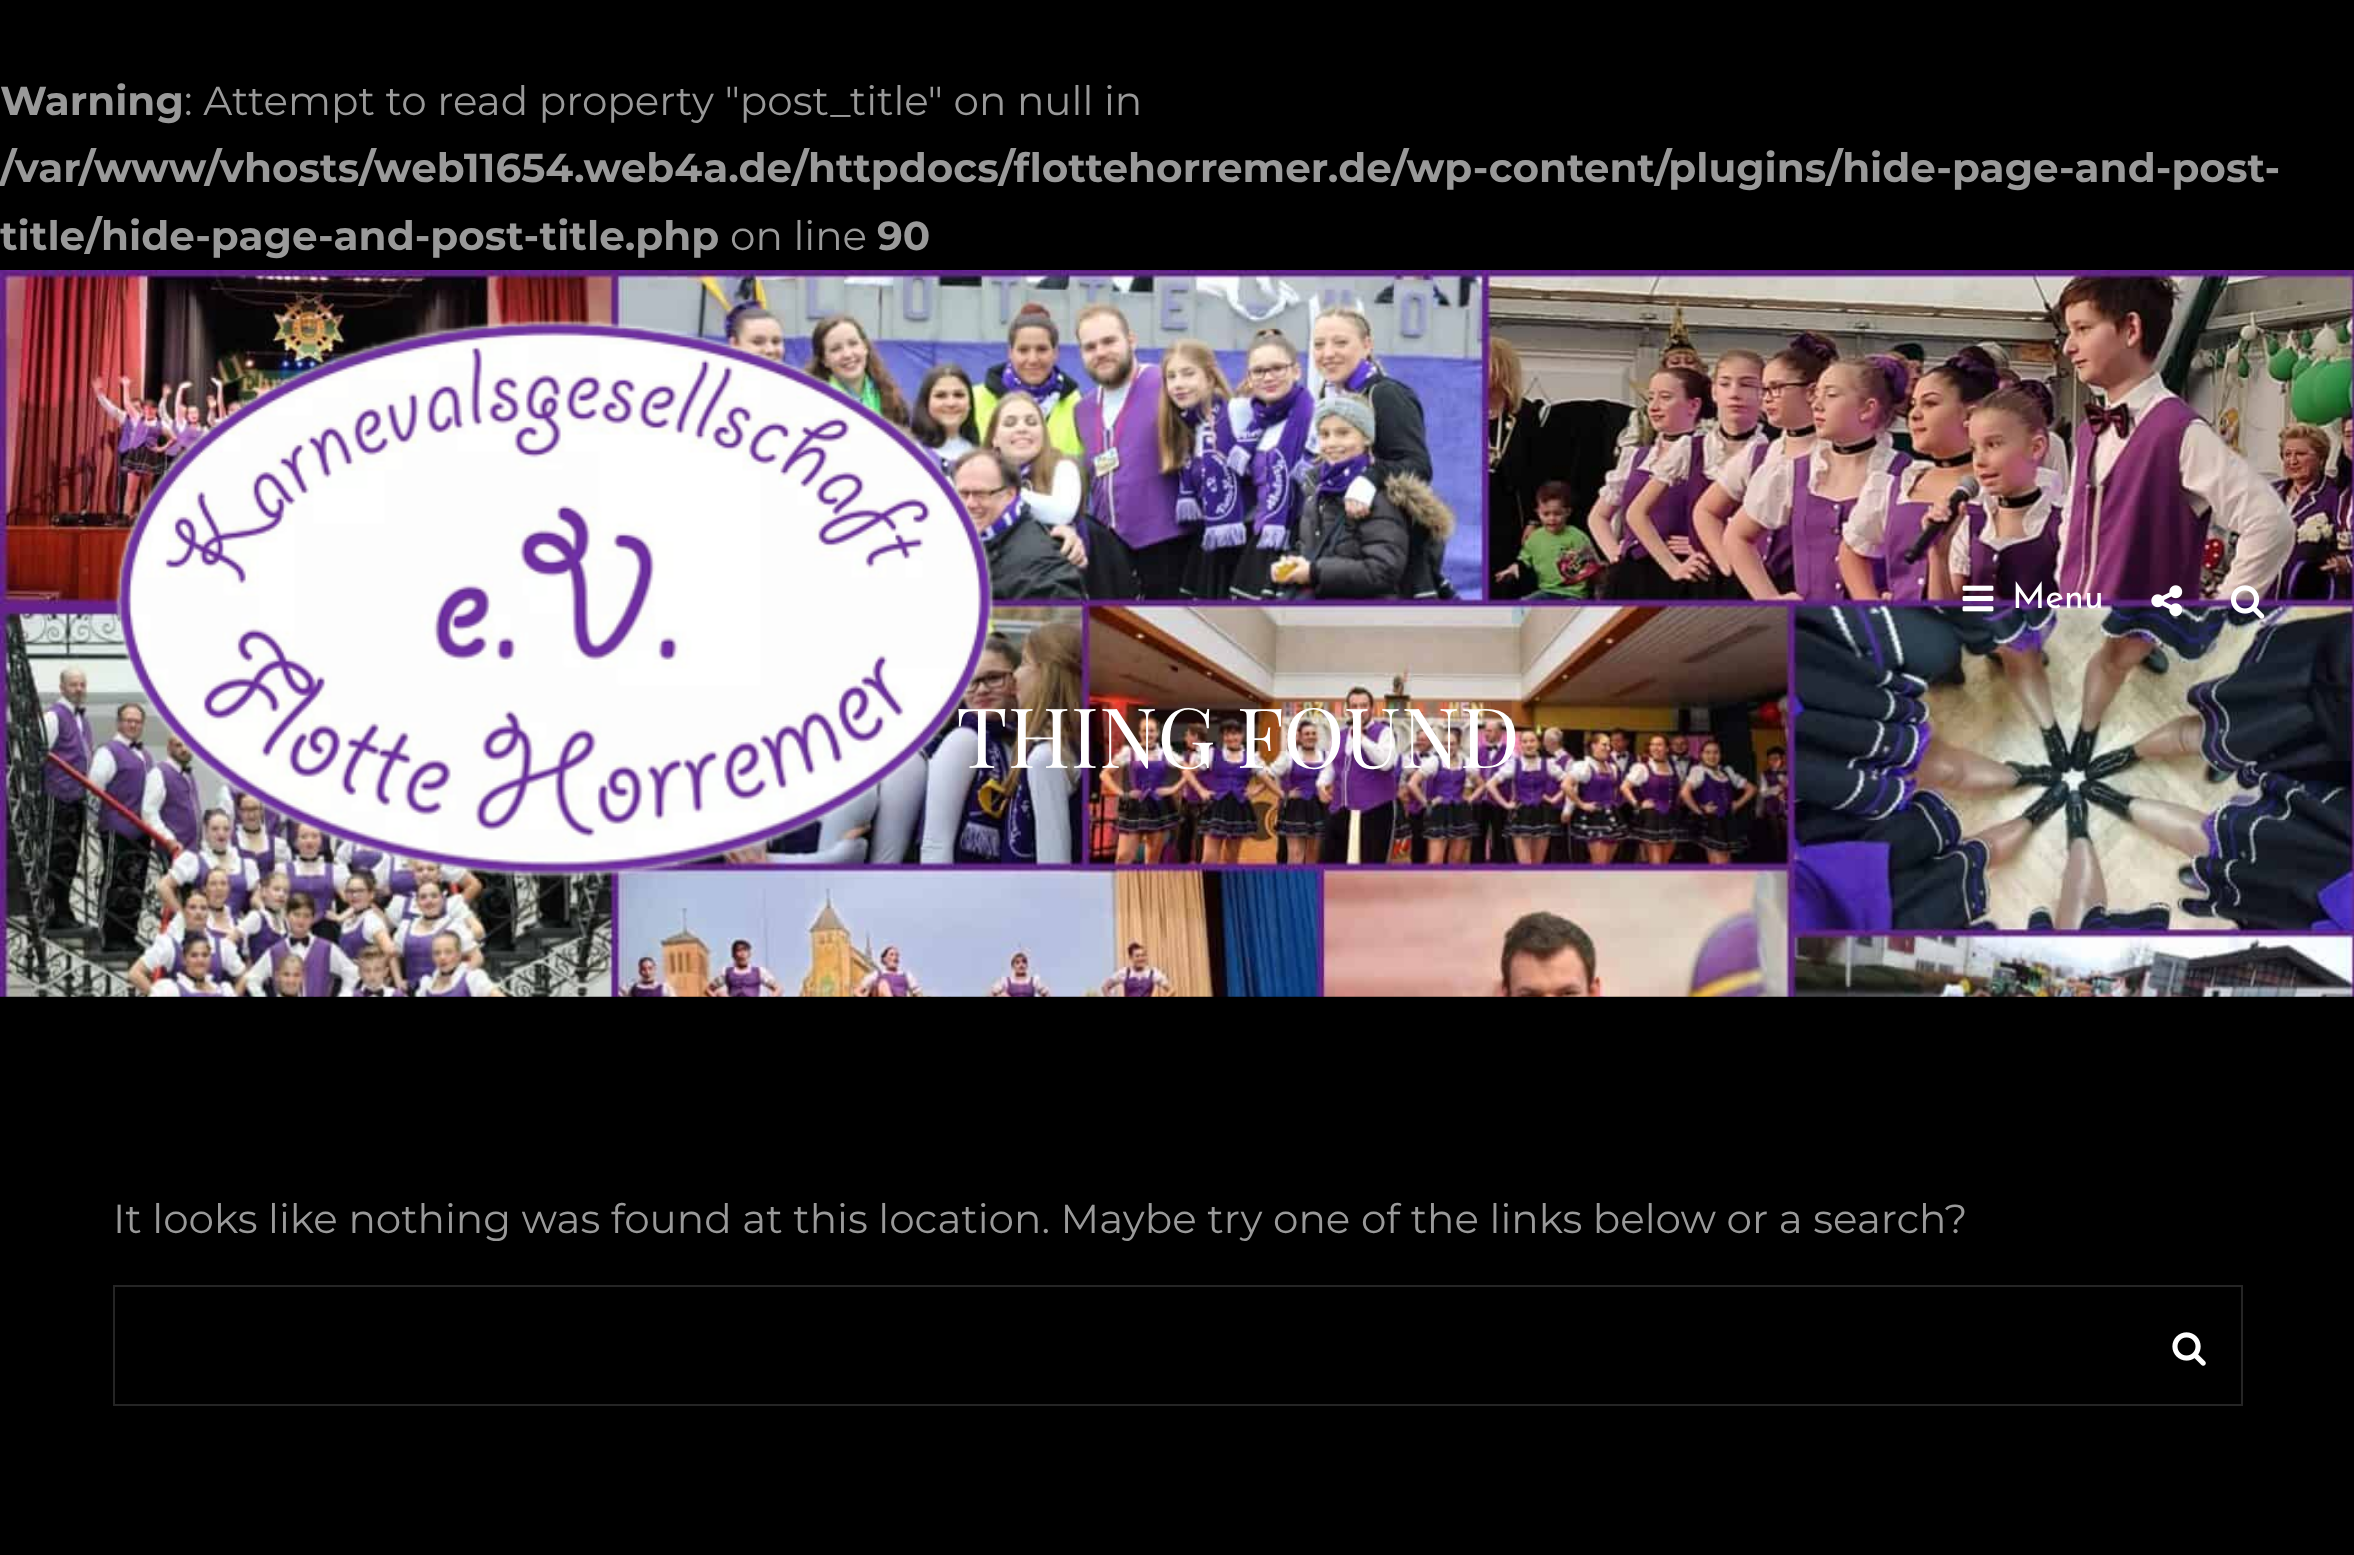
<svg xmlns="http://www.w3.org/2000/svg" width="2354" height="1555">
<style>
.a{font:bold 40.5px Montserrat;fill:#999}
.b{font:40.5px Montserrat;fill:#999}
.c{font:36px Josefin Sans;fill:#fff}
.d{font:83.25px Playfair Display;fill:#fff}
</style>
<rect width="100%" height="100%" fill="#000"/>
<image href="5.png" x="0" y="270" width="2354" height="727"/>
<image href="2.png" x="1962" y="585" width="32" height="27"/>
<image href="3.png" x="2151" y="585" width="32" height="32"/>
<image href="4.png" x="2230" y="585" width="35" height="34"/>
<path fill="none" stroke="#252525" stroke-width="2" d="M114 1286h2128v119H114z"/>
<image href="6.png" x="2172" y="1332" width="34" height="34"/>
<text class="a" x="0" y="115">Warning</text>
<text class="b" x="184" y="115">: Attempt to read property "post_title" on null in</text>
<text class="a" x="0" y="182">/var/www/vhosts/web11654.web4a.de/httpdocs/flottehorremer.de/wp-content/plugins/hide-page-and-post-</text>
<text class="a" x="0" y="250">title/hide-page-and-post-title.php</text>
<text class="b" x="730" y="250">on line</text>
<text class="a" x="877" y="250">90</text>
<text class="c" x="2012" y="608">Menu</text>
<text class="d" x="956" y="768">THING FOUND</text>
<image href="1.png" x="114" y="318" width="882" height="560"/>
<text class="b" x="113" y="1233">It looks like nothing was found at this location. Maybe try one of the links below or a search?</text>
</svg>
